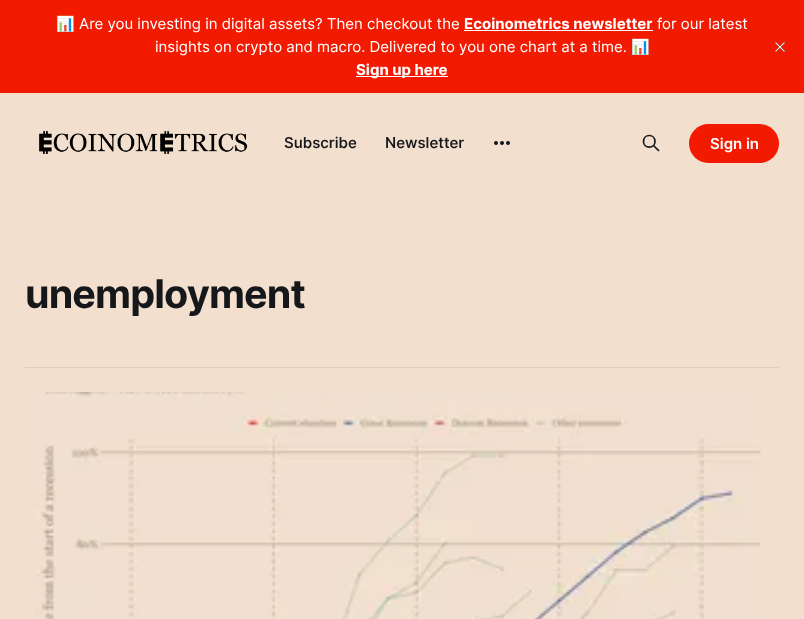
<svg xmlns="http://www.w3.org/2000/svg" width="804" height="619">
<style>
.a{font:15px Noto Color Emoji;fill:#fff}
.b{font:15px Inter;fill:#fff}
.c{font:bold 15px Inter;fill:#fff}
.d{font:500 15px Inter;fill:#15171a}
.e{font:600 15px Inter;fill:#fff}
.f{font:bold 39.5px Inter;letter-spacing:-0.9px;fill:#15171a}
</style>
<rect width="100%" height="100%" fill="#f2dfce"/>
<path fill="#f21a00" d="M0 0h804v93H0z"/>
<path fill="#fff" d="M464 30h189v1H464z"/>
<path fill="#fff" d="M356 76h92v1H356z"/>
<image href="1.png" x="774" y="42" width="12" height="10"/>
<image href="2.png" x="39" y="130" width="209" height="24"/>
<image href="3.png" x="494" y="141" width="16" height="4"/>
<path fill="none" stroke="#15171a" stroke-width="1.7" stroke-linecap="round" stroke-linejoin="round" d="M658.5 150.5l-5-5m1.5-4c0 7.5-11.5 7.5-11.5 0c0-8 11.5-8 11.5 0z"/>
<rect fill="#f21a00" x="689" y="124" width="90" height="39" rx="19.5"/>
<path fill="#dfcdbe" d="M25 367h754v1H25z"/>
<image href="4.png" x="35" y="392" width="726" height="227"/>
<text class="a" x="56" y="29">📊</text>
<text class="b" x="79" y="29">Are you investing in digital assets? Then checkout the</text>
<text class="c" x="464" y="29">Ecoinometrics newsletter</text>
<text class="b" x="657" y="29">for our latest</text>
<text class="b" x="155" y="52">insights on crypto and macro. Delivered to you one chart at a time.</text>
<text class="a" x="631" y="52">📊</text>
<text class="c" x="356" y="75">Sign up here</text>
<text class="d" x="284" y="148">Subscribe</text>
<text class="d" x="385" y="148">Newsletter</text>
<text class="e" x="710" y="149">Sign in</text>
<text class="f" x="25" y="308">unemployment</text>
</svg>
